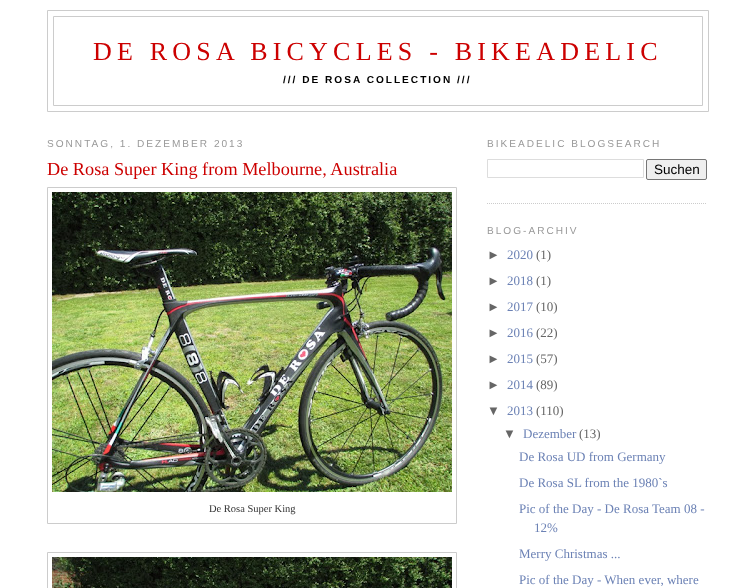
<svg xmlns="http://www.w3.org/2000/svg" width="754" height="588">
<style>
.a{font:26px Liberation Serif;letter-spacing:5.2px;fill:#c00}
.b{font:bold 10.1px Liberation Sans;letter-spacing:2px;fill:#000}
.c{font:10.1px Liberation Sans;letter-spacing:2px;fill:#999}
.d{font:18.25px Liberation Serif;fill:#c00}
.e{font:10.5px Liberation Serif;fill:#333}
.f{font:13.5px Liberation Sans;fill:#000}
.g{font:13px Liberation Sans;fill:#666}
.h{font:13px Liberation Serif;fill:#6c82b5}
.i{font:13px Liberation Serif;fill:#666}
</style>
<rect width="100%" height="100%" fill="#fff"/>
<path fill="none" stroke="#ccc" d="M47.5 10.5h661v101H47.5z"/>
<path fill="none" stroke="#ccc" d="M53.5 16.5h649v89H53.5z"/>
<path fill="none" stroke="#ccc" d="M47.5 187.5h409v336H47.5z"/>
<image href="1.png" x="52" y="192" width="400" height="300"/>
<path fill="none" stroke="#ccc" d="M47.5 552.5h409v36H47.5z"/>
<image href="2.png" x="52" y="557" width="400" height="31"/>
<path fill="none" stroke="#ccc" stroke-dasharray="1 1" d="M487 203.5h220"/>
<path fill="none" stroke="#ddd" d="M487.5 159.5h156v18H487.5z"/>
<rect fill="#efefef" stroke="#767676" x="646.5" y="159.5" width="60" height="20" rx="1.5"/>
<text class="a" x="93" y="60">DE ROSA BICYCLES - BIKEADELIC</text>
<text class="b" x="283" y="83">/// DE ROSA COLLECTION ///</text>
<text class="c" x="47" y="147">SONNTAG, 1. DEZEMBER 2013</text>
<text class="d" x="47" y="175">De Rosa Super King from Melbourne, Australia</text>
<text class="e" x="209" y="512">De Rosa Super King</text>
<text class="c" x="487" y="147">BIKEADELIC BLOGSEARCH</text>
<text class="f" x="654" y="174">Suchen</text>
<text class="c" x="487" y="234">BLOG-ARCHIV</text>
<text class="g" x="487" y="259">►</text>
<text class="h" x="507" y="259">2020</text>
<text class="i" x="536" y="259">(1)</text>
<text class="g" x="487" y="285">►</text>
<text class="h" x="507" y="285">2018</text>
<text class="i" x="536" y="285">(1)</text>
<text class="g" x="487" y="311">►</text>
<text class="h" x="507" y="311">2017</text>
<text class="i" x="536" y="311">(10)</text>
<text class="g" x="487" y="337">►</text>
<text class="h" x="507" y="337">2016</text>
<text class="i" x="536" y="337">(22)</text>
<text class="g" x="487" y="363">►</text>
<text class="h" x="507" y="363">2015</text>
<text class="i" x="536" y="363">(57)</text>
<text class="g" x="487" y="389">►</text>
<text class="h" x="507" y="389">2014</text>
<text class="i" x="536" y="389">(89)</text>
<text class="g" x="487" y="415">▼</text>
<text class="h" x="507" y="415">2013</text>
<text class="i" x="536" y="415">(110)</text>
<text class="g" x="503" y="438">▼</text>
<text class="h" x="523" y="438">Dezember</text>
<text class="i" x="579" y="438">(13)</text>
<text class="h" x="519" y="461">De Rosa UD from Germany</text>
<text class="h" x="519" y="487">De Rosa SL from the 1980`s</text>
<text class="h" x="519" y="513">Pic of the Day - De Rosa Team 08 -</text>
<text class="h" x="534" y="532">12%</text>
<text class="h" x="519" y="558">Merry Christmas ...</text>
<text class="h" x="519" y="584">Pic of the Day - When ever, where</text>
</svg>
